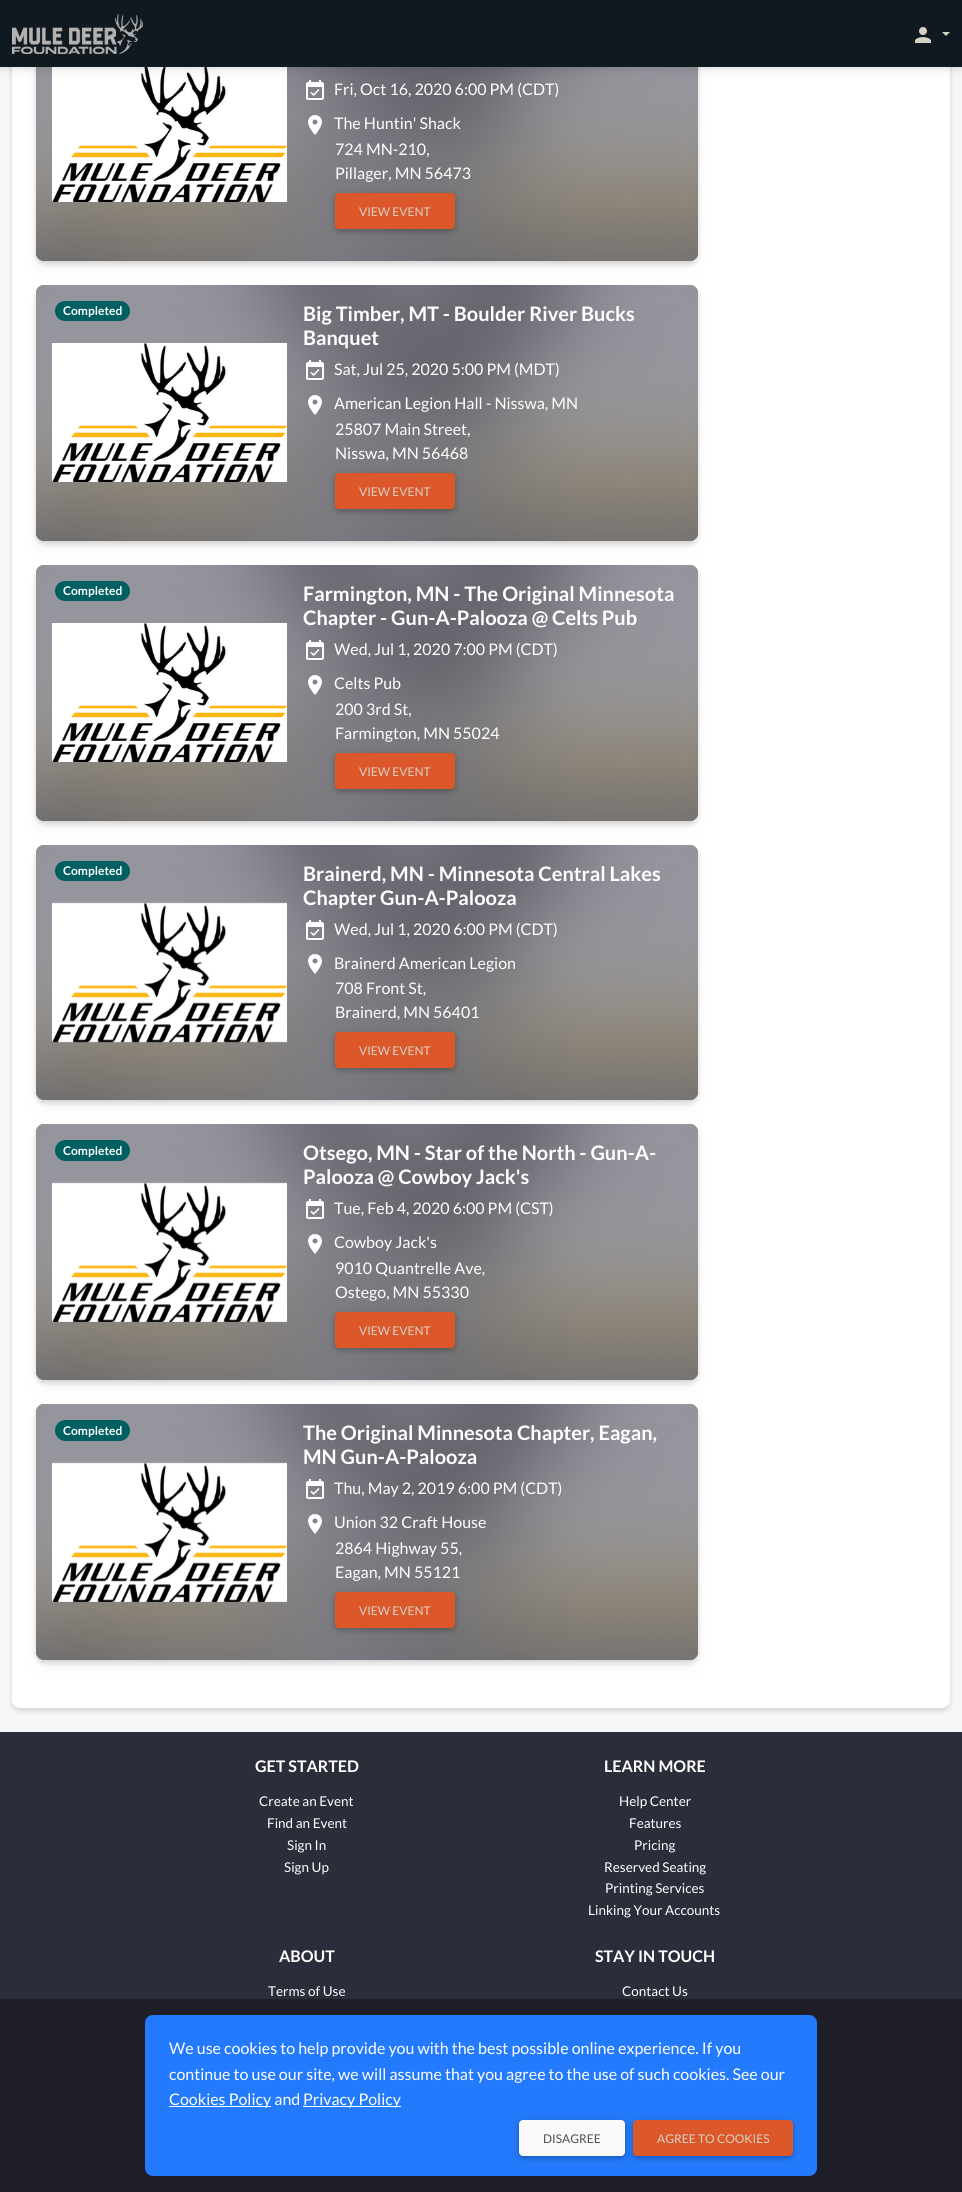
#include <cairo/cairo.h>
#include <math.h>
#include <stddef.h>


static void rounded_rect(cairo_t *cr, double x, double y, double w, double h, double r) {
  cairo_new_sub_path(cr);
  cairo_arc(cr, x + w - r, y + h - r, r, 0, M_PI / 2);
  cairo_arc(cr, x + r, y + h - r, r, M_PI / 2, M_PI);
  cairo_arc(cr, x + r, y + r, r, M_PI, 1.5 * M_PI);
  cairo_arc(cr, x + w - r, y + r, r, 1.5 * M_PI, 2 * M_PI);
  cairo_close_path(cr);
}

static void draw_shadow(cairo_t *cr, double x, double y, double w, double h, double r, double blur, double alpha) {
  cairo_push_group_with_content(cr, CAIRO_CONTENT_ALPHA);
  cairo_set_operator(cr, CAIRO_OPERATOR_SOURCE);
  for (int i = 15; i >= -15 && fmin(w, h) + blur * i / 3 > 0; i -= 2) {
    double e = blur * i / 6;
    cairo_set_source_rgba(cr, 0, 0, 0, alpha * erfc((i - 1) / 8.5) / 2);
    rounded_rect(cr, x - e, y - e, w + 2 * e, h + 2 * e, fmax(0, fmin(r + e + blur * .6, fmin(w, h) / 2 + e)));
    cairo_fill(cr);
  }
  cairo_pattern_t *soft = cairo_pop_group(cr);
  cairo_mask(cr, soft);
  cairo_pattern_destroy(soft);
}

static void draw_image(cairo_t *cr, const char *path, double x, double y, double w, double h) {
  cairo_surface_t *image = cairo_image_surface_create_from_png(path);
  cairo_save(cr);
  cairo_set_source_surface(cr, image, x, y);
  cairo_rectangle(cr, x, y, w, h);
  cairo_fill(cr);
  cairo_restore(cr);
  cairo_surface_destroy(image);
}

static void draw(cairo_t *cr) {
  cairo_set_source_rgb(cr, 245 / 255.0, 247 / 255.0, 248 / 255.0);
  cairo_paint(cr);
  cairo_set_source_rgb(cr, 0, 0, 0);
  draw_shadow(cr, 12, -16, 938, 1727, 8, 2.5, 0.15);
  cairo_set_source_rgb(cr, 1, 1, 1);
  rounded_rect(cr, 12, -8, 938, 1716, 8);
  cairo_fill(cr);
  cairo_set_source_rgb(cr, 0, 0, 0);
  draw_shadow(cr, 38, 17, 658, 252, 6, 10, 0.04);
  draw_shadow(cr, 36, 8, 662, 256, 8, 2.5, 0.15);
  cairo_set_source_rgb(cr, 43 / 255.0, 45 / 255.0, 59 / 255.0);
  rounded_rect(cr, 36, 5, 662, 256, 8);
  cairo_fill(cr);
  draw_image(cr, "images/3.png", 36, 67, 662, 194);
  draw_image(cr, "images/4.png", 52, 67, 235, 135);
  cairo_set_source_rgb(cr, 0, 0, 0);
  draw_shadow(cr, 0, 2, 962, 67, 0, 2, 0.05);
  draw_image(cr, "images/5.png", 306, 80, 18, 20);
  draw_shadow(cr, 0, 4, 962, 67, 0, 6, 0.07);
  cairo_set_source_rgb(cr, 16 / 255.0, 24 / 255.0, 32 / 255.0);
  cairo_rectangle(cr, 0, 0, 962, 67);
  cairo_fill(cr);
  draw_image(cr, "images/1.png", 12, 14, 131, 40);
  draw_image(cr, "images/2.png", 915, 27, 16, 16);
  cairo_set_source_rgb(cr, 214 / 255.0, 210 / 255.0, 196 / 255.0);
  cairo_new_path(cr);
  cairo_move_to(cr, 942, 32);
  cairo_line_to(cr, 950, 32);
  cairo_line_to(cr, 946, 36);
  cairo_close_path(cr);
  cairo_fill(cr);
  draw_image(cr, "images/6.png", 308, 115, 14, 20);
  cairo_set_source_rgb(cr, 0, 0, 0);
  draw_shadow(cr, 335, 195, 120, 36, 4, 5, 0.1);
  draw_shadow(cr, 335, 195, 120, 36, 4, 2.5, 0.2);
  cairo_set_source_rgb(cr, 220 / 255.0, 88 / 255.0, 42 / 255.0);
  rounded_rect(cr, 335, 193, 120, 36, 4);
  cairo_fill(cr);
  cairo_set_source_rgb(cr, 0, 0, 0);
  draw_shadow(cr, 38, 297, 658, 252, 6, 10, 0.04);
  draw_shadow(cr, 36, 288, 662, 256, 8, 2.5, 0.15);
  cairo_set_source_rgb(cr, 43 / 255.0, 45 / 255.0, 59 / 255.0);
  rounded_rect(cr, 36, 285, 662, 256, 8);
  cairo_fill(cr);
  draw_image(cr, "images/7.png", 36, 285, 662, 256);
  cairo_set_source_rgb(cr, 0, 95 / 255.0, 97 / 255.0);
  rounded_rect(cr, 55, 301, 75, 20, 10);
  cairo_fill(cr);
  draw_image(cr, "images/8.png", 52, 343, 235, 139);
  draw_image(cr, "images/5.png", 306, 360, 18, 20);
  draw_image(cr, "images/6.png", 308, 395, 14, 20);
  cairo_set_source_rgb(cr, 0, 0, 0);
  draw_shadow(cr, 335, 475, 120, 36, 4, 5, 0.1);
  draw_shadow(cr, 335, 475, 120, 36, 4, 2.5, 0.2);
  cairo_set_source_rgb(cr, 220 / 255.0, 88 / 255.0, 42 / 255.0);
  rounded_rect(cr, 335, 473, 120, 36, 4);
  cairo_fill(cr);
  cairo_set_source_rgb(cr, 0, 0, 0);
  draw_shadow(cr, 38, 577, 658, 252, 6, 10, 0.04);
  draw_shadow(cr, 36, 568, 662, 256, 8, 2.5, 0.15);
  cairo_set_source_rgb(cr, 43 / 255.0, 45 / 255.0, 59 / 255.0);
  rounded_rect(cr, 36, 565, 662, 256, 8);
  cairo_fill(cr);
  draw_image(cr, "images/7.png", 36, 565, 662, 256);
  cairo_set_source_rgb(cr, 0, 95 / 255.0, 97 / 255.0);
  rounded_rect(cr, 55, 581, 75, 20, 10);
  cairo_fill(cr);
  draw_image(cr, "images/8.png", 52, 623, 235, 139);
  draw_image(cr, "images/5.png", 306, 640, 18, 20);
  draw_image(cr, "images/6.png", 308, 675, 14, 20);
  cairo_set_source_rgb(cr, 0, 0, 0);
  draw_shadow(cr, 335, 755, 120, 36, 4, 5, 0.1);
  draw_shadow(cr, 335, 755, 120, 36, 4, 2.5, 0.2);
  cairo_set_source_rgb(cr, 220 / 255.0, 88 / 255.0, 42 / 255.0);
  rounded_rect(cr, 335, 753, 120, 36, 4);
  cairo_fill(cr);
  cairo_set_source_rgb(cr, 0, 0, 0);
  draw_shadow(cr, 38, 857, 658, 251, 6, 10, 0.04);
  draw_shadow(cr, 36, 848, 662, 255, 8, 2.5, 0.15);
  cairo_set_source_rgb(cr, 43 / 255.0, 45 / 255.0, 59 / 255.0);
  rounded_rect(cr, 36, 845, 662, 255, 8);
  cairo_fill(cr);
  draw_image(cr, "images/9.png", 36, 845, 662, 255);
  cairo_set_source_rgb(cr, 0, 95 / 255.0, 97 / 255.0);
  rounded_rect(cr, 55, 861, 75, 20, 10);
  cairo_fill(cr);
  draw_image(cr, "images/10.png", 52, 902, 235, 141);
  draw_image(cr, "images/11.png", 306, 920, 18, 20);
  draw_image(cr, "images/12.png", 308, 954, 14, 20);
  cairo_set_source_rgb(cr, 0, 0, 0);
  draw_shadow(cr, 335, 1034, 120, 36, 4, 5, 0.1);
  draw_shadow(cr, 335, 1034, 120, 36, 4, 2.5, 0.2);
  cairo_set_source_rgb(cr, 220 / 255.0, 88 / 255.0, 42 / 255.0);
  rounded_rect(cr, 335, 1032, 120, 36, 4);
  cairo_fill(cr);
  cairo_set_source_rgb(cr, 0, 0, 0);
  draw_shadow(cr, 38, 1136, 658, 252, 6, 10, 0.04);
  draw_shadow(cr, 36, 1127, 662, 256, 8, 2.5, 0.15);
  cairo_set_source_rgb(cr, 43 / 255.0, 45 / 255.0, 59 / 255.0);
  rounded_rect(cr, 36, 1124, 662, 256, 8);
  cairo_fill(cr);
  draw_image(cr, "images/7.png", 36, 1124, 662, 256);
  cairo_set_source_rgb(cr, 0, 95 / 255.0, 97 / 255.0);
  rounded_rect(cr, 55, 1140, 75, 21, 10.5);
  cairo_fill(cr);
  draw_image(cr, "images/13.png", 52, 1182, 235, 140);
  draw_image(cr, "images/5.png", 306, 1199, 18, 20);
  draw_image(cr, "images/6.png", 308, 1234, 14, 20);
  cairo_set_source_rgb(cr, 0, 0, 0);
  draw_shadow(cr, 335, 1314, 120, 36, 4, 5, 0.1);
  draw_shadow(cr, 335, 1314, 120, 36, 4, 2.5, 0.2);
  cairo_set_source_rgb(cr, 220 / 255.0, 88 / 255.0, 42 / 255.0);
  rounded_rect(cr, 335, 1312, 120, 36, 4);
  cairo_fill(cr);
  cairo_set_source_rgb(cr, 0, 0, 0);
  draw_shadow(cr, 38, 1416, 658, 252, 6, 10, 0.04);
  draw_shadow(cr, 36, 1407, 662, 256, 8, 2.5, 0.15);
  cairo_set_source_rgb(cr, 43 / 255.0, 45 / 255.0, 59 / 255.0);
  rounded_rect(cr, 36, 1404, 662, 256, 8);
  cairo_fill(cr);
  draw_image(cr, "images/7.png", 36, 1404, 662, 256);
  cairo_set_source_rgb(cr, 0, 95 / 255.0, 97 / 255.0);
  rounded_rect(cr, 55, 1420, 75, 21, 10.5);
  cairo_fill(cr);
  draw_image(cr, "images/14.png", 52, 1462, 235, 140);
  draw_image(cr, "images/5.png", 306, 1479, 18, 20);
  draw_image(cr, "images/6.png", 308, 1514, 14, 20);
  cairo_set_source_rgb(cr, 0, 0, 0);
  draw_shadow(cr, 335, 1594, 120, 36, 4, 5, 0.1);
  draw_shadow(cr, 335, 1594, 120, 36, 4, 2.5, 0.2);
  cairo_set_source_rgb(cr, 220 / 255.0, 88 / 255.0, 42 / 255.0);
  rounded_rect(cr, 335, 1592, 120, 36, 4);
  cairo_fill(cr);
  cairo_set_source_rgb(cr, 43 / 255.0, 45 / 255.0, 59 / 255.0);
  cairo_rectangle(cr, 0, 1732, 962, 267);
  cairo_fill(cr);
  cairo_set_source_rgb(cr, 29 / 255.0, 30 / 255.0, 40 / 255.0);
  cairo_rectangle(cr, 0, 1999, 962, 193);
  cairo_fill(cr);
  cairo_set_source_rgb(cr, 35 / 255.0, 122 / 255.0, 252 / 255.0);
  rounded_rect(cr, 145, 2015, 672, 161, 8);
  cairo_fill(cr);
  cairo_set_source_rgb(cr, 1, 1, 1);
  cairo_rectangle(cr, 169, 2106, 102, 1);
  cairo_fill(cr);
  cairo_rectangle(cr, 303, 2106, 98, 1);
  cairo_fill(cr);
  cairo_set_source_rgb(cr, 0, 0, 0);
  draw_shadow(cr, 633, 2122, 160, 36, 4, 5, 0.1);
  draw_shadow(cr, 633, 2122, 160, 36, 4, 2.5, 0.2);
  cairo_set_source_rgb(cr, 220 / 255.0, 88 / 255.0, 42 / 255.0);
  rounded_rect(cr, 633, 2120, 160, 36, 4);
  cairo_fill(cr);
  cairo_set_source_rgb(cr, 0, 0, 0);
  draw_shadow(cr, 519, 2122, 106, 36, 4, 5, 0.1);
  draw_shadow(cr, 519, 2122, 106, 36, 4, 2.5, 0.2);
  cairo_set_source_rgb(cr, 249 / 255.0, 249 / 255.0, 249 / 255.0);
  rounded_rect(cr, 519, 2120, 106, 36, 4);
  cairo_fill(cr);
  cairo_select_font_face(cr, "Lato", CAIRO_FONT_SLANT_NORMAL, CAIRO_FONT_WEIGHT_NORMAL);
  cairo_set_font_size(cr, 16);
  cairo_set_source_rgb(cr, 1, 1, 1);
  cairo_move_to(cr, 334, 95);
  cairo_show_text(cr, "Fri, Oct 16, 2020 6:00 PM (CDT)");
  cairo_move_to(cr, 334, 129);
  cairo_show_text(cr, "The Huntin' Shack");
  cairo_move_to(cr, 335, 155);
  cairo_show_text(cr, "724 MN-210,");
  cairo_move_to(cr, 335, 179);
  cairo_show_text(cr, "Pillager, MN 56473");
  cairo_set_font_size(cr, 12);
  cairo_set_source_rgb(cr, 214 / 255.0, 210 / 255.0, 196 / 255.0);
  cairo_move_to(cr, 359, 216);
  cairo_show_text(cr, "VIEW EVENT");
  cairo_select_font_face(cr, "Lato", CAIRO_FONT_SLANT_NORMAL, CAIRO_FONT_WEIGHT_BOLD);
  cairo_set_source_rgb(cr, 1, 1, 1);
  cairo_move_to(cr, 63, 315);
  cairo_show_text(cr, "Completed");
  cairo_set_font_size(cr, 20);
  cairo_move_to(cr, 303, 321);
  cairo_show_text(cr, "Big Timber, MT - Boulder River Bucks");
  cairo_move_to(cr, 303, 345);
  cairo_show_text(cr, "Banquet");
  cairo_select_font_face(cr, "Lato", CAIRO_FONT_SLANT_NORMAL, CAIRO_FONT_WEIGHT_NORMAL);
  cairo_set_font_size(cr, 16);
  cairo_move_to(cr, 334, 375);
  cairo_show_text(cr, "Sat, Jul 25, 2020 5:00 PM (MDT)");
  cairo_move_to(cr, 334, 409);
  cairo_show_text(cr, "American Legion Hall - Nisswa, MN");
  cairo_move_to(cr, 335, 435);
  cairo_show_text(cr, "25807 Main Street,");
  cairo_move_to(cr, 335, 459);
  cairo_show_text(cr, "Nisswa, MN 56468");
  cairo_set_font_size(cr, 12);
  cairo_set_source_rgb(cr, 214 / 255.0, 210 / 255.0, 196 / 255.0);
  cairo_move_to(cr, 359, 496);
  cairo_show_text(cr, "VIEW EVENT");
  cairo_select_font_face(cr, "Lato", CAIRO_FONT_SLANT_NORMAL, CAIRO_FONT_WEIGHT_BOLD);
  cairo_set_source_rgb(cr, 1, 1, 1);
  cairo_move_to(cr, 63, 595);
  cairo_show_text(cr, "Completed");
  cairo_set_font_size(cr, 20);
  cairo_move_to(cr, 303, 601);
  cairo_show_text(cr, "Farmington, MN - The Original Minnesota");
  cairo_move_to(cr, 303, 625);
  cairo_show_text(cr, "Chapter - Gun-A-Palooza @ Celts Pub");
  cairo_select_font_face(cr, "Lato", CAIRO_FONT_SLANT_NORMAL, CAIRO_FONT_WEIGHT_NORMAL);
  cairo_set_font_size(cr, 16);
  cairo_move_to(cr, 334, 655);
  cairo_show_text(cr, "Wed, Jul 1, 2020 7:00 PM (CDT)");
  cairo_move_to(cr, 334, 689);
  cairo_show_text(cr, "Celts Pub");
  cairo_move_to(cr, 335, 715);
  cairo_show_text(cr, "200 3rd St,");
  cairo_move_to(cr, 335, 739);
  cairo_show_text(cr, "Farmington, MN 55024");
  cairo_set_font_size(cr, 12);
  cairo_set_source_rgb(cr, 214 / 255.0, 210 / 255.0, 196 / 255.0);
  cairo_move_to(cr, 359, 776);
  cairo_show_text(cr, "VIEW EVENT");
  cairo_select_font_face(cr, "Lato", CAIRO_FONT_SLANT_NORMAL, CAIRO_FONT_WEIGHT_BOLD);
  cairo_set_source_rgb(cr, 1, 1, 1);
  cairo_move_to(cr, 63, 875);
  cairo_show_text(cr, "Completed");
  cairo_set_font_size(cr, 20);
  cairo_move_to(cr, 303, 881);
  cairo_show_text(cr, "Brainerd, MN - Minnesota Central Lakes");
  cairo_move_to(cr, 303, 905);
  cairo_show_text(cr, "Chapter Gun-A-Palooza");
  cairo_select_font_face(cr, "Lato", CAIRO_FONT_SLANT_NORMAL, CAIRO_FONT_WEIGHT_NORMAL);
  cairo_set_font_size(cr, 16);
  cairo_move_to(cr, 334, 935);
  cairo_show_text(cr, "Wed, Jul 1, 2020 6:00 PM (CDT)");
  cairo_move_to(cr, 334, 969);
  cairo_show_text(cr, "Brainerd American Legion");
  cairo_move_to(cr, 335, 994);
  cairo_show_text(cr, "708 Front St,");
  cairo_move_to(cr, 335, 1018);
  cairo_show_text(cr, "Brainerd, MN 56401");
  cairo_set_font_size(cr, 12);
  cairo_set_source_rgb(cr, 214 / 255.0, 210 / 255.0, 196 / 255.0);
  cairo_move_to(cr, 359, 1055);
  cairo_show_text(cr, "VIEW EVENT");
  cairo_select_font_face(cr, "Lato", CAIRO_FONT_SLANT_NORMAL, CAIRO_FONT_WEIGHT_BOLD);
  cairo_set_source_rgb(cr, 1, 1, 1);
  cairo_move_to(cr, 63, 1155);
  cairo_show_text(cr, "Completed");
  cairo_set_font_size(cr, 20);
  cairo_move_to(cr, 303, 1160);
  cairo_show_text(cr, "Otsego, MN - Star of the North - Gun-A-");
  cairo_move_to(cr, 303, 1184);
  cairo_show_text(cr, "Palooza @ Cowboy Jack's");
  cairo_select_font_face(cr, "Lato", CAIRO_FONT_SLANT_NORMAL, CAIRO_FONT_WEIGHT_NORMAL);
  cairo_set_font_size(cr, 16);
  cairo_move_to(cr, 334, 1214);
  cairo_show_text(cr, "Tue, Feb 4, 2020 6:00 PM (CST)");
  cairo_move_to(cr, 334, 1248);
  cairo_show_text(cr, "Cowboy Jack's");
  cairo_move_to(cr, 335, 1274);
  cairo_show_text(cr, "9010 Quantrelle Ave,");
  cairo_move_to(cr, 335, 1298);
  cairo_show_text(cr, "Ostego, MN 55330");
  cairo_set_font_size(cr, 12);
  cairo_set_source_rgb(cr, 214 / 255.0, 210 / 255.0, 196 / 255.0);
  cairo_move_to(cr, 359, 1335);
  cairo_show_text(cr, "VIEW EVENT");
  cairo_select_font_face(cr, "Lato", CAIRO_FONT_SLANT_NORMAL, CAIRO_FONT_WEIGHT_BOLD);
  cairo_set_source_rgb(cr, 1, 1, 1);
  cairo_move_to(cr, 63, 1435);
  cairo_show_text(cr, "Completed");
  cairo_set_font_size(cr, 20);
  cairo_move_to(cr, 303, 1440);
  cairo_show_text(cr, "The Original Minnesota Chapter, Eagan,");
  cairo_move_to(cr, 303, 1464);
  cairo_show_text(cr, "MN Gun-A-Palooza");
  cairo_select_font_face(cr, "Lato", CAIRO_FONT_SLANT_NORMAL, CAIRO_FONT_WEIGHT_NORMAL);
  cairo_set_font_size(cr, 16);
  cairo_move_to(cr, 334, 1494);
  cairo_show_text(cr, "Thu, May 2, 2019 6:00 PM (CDT)");
  cairo_move_to(cr, 334, 1528);
  cairo_show_text(cr, "Union 32 Craft House");
  cairo_move_to(cr, 335, 1554);
  cairo_show_text(cr, "2864 Highway 55,");
  cairo_move_to(cr, 335, 1578);
  cairo_show_text(cr, "Eagan, MN 55121");
  cairo_set_font_size(cr, 12);
  cairo_set_source_rgb(cr, 214 / 255.0, 210 / 255.0, 196 / 255.0);
  cairo_move_to(cr, 359, 1615);
  cairo_show_text(cr, "VIEW EVENT");
  cairo_select_font_face(cr, "Lato", CAIRO_FONT_SLANT_NORMAL, CAIRO_FONT_WEIGHT_BOLD);
  cairo_set_font_size(cr, 16);
  cairo_set_source_rgb(cr, 1, 1, 1);
  cairo_move_to(cr, 255, 1772);
  cairo_show_text(cr, "GET STARTED");
  cairo_select_font_face(cr, "Lato", CAIRO_FONT_SLANT_NORMAL, CAIRO_FONT_WEIGHT_NORMAL);
  cairo_set_font_size(cr, 13.5);
  cairo_move_to(cr, 259, 1806);
  cairo_show_text(cr, "Create an Event");
  cairo_move_to(cr, 267, 1828);
  cairo_show_text(cr, "Find an Event");
  cairo_move_to(cr, 287, 1850);
  cairo_show_text(cr, "Sign In");
  cairo_move_to(cr, 284, 1872);
  cairo_show_text(cr, "Sign Up");
  cairo_select_font_face(cr, "Lato", CAIRO_FONT_SLANT_NORMAL, CAIRO_FONT_WEIGHT_BOLD);
  cairo_set_font_size(cr, 16);
  cairo_move_to(cr, 604, 1772);
  cairo_show_text(cr, "LEARN MORE");
  cairo_select_font_face(cr, "Lato", CAIRO_FONT_SLANT_NORMAL, CAIRO_FONT_WEIGHT_NORMAL);
  cairo_set_font_size(cr, 13.5);
  cairo_move_to(cr, 619, 1806);
  cairo_show_text(cr, "Help Center");
  cairo_move_to(cr, 629, 1828);
  cairo_show_text(cr, "Features");
  cairo_move_to(cr, 634, 1850);
  cairo_show_text(cr, "Pricing");
  cairo_move_to(cr, 604, 1872);
  cairo_show_text(cr, "Reserved Seating");
  cairo_move_to(cr, 605, 1893);
  cairo_show_text(cr, "Printing Services");
  cairo_move_to(cr, 588, 1915);
  cairo_show_text(cr, "Linking Your Accounts");
  cairo_select_font_face(cr, "Lato", CAIRO_FONT_SLANT_NORMAL, CAIRO_FONT_WEIGHT_BOLD);
  cairo_set_font_size(cr, 16);
  cairo_move_to(cr, 279, 1962);
  cairo_show_text(cr, "ABOUT");
  cairo_select_font_face(cr, "Lato", CAIRO_FONT_SLANT_NORMAL, CAIRO_FONT_WEIGHT_NORMAL);
  cairo_set_font_size(cr, 13.5);
  cairo_move_to(cr, 268, 1996);
  cairo_show_text(cr, "Terms of Use");
  cairo_select_font_face(cr, "Lato", CAIRO_FONT_SLANT_NORMAL, CAIRO_FONT_WEIGHT_BOLD);
  cairo_set_font_size(cr, 16);
  cairo_move_to(cr, 595, 1962);
  cairo_show_text(cr, "STAY IN TOUCH");
  cairo_select_font_face(cr, "Lato", CAIRO_FONT_SLANT_NORMAL, CAIRO_FONT_WEIGHT_NORMAL);
  cairo_set_font_size(cr, 13.5);
  cairo_move_to(cr, 622, 1996);
  cairo_show_text(cr, "Contact Us");
  cairo_set_font_size(cr, 16);
  cairo_move_to(cr, 169, 2054);
  cairo_show_text(cr, "We use cookies to help provide you with the best possible online experience. If you");
  cairo_move_to(cr, 169, 2080);
  cairo_show_text(cr, "continue to use our site, we will assume that you agree to the use of such cookies. See our");
  cairo_move_to(cr, 169, 2105);
  cairo_show_text(cr, "Cookies Policy and");
  cairo_move_to(cr, 303, 2105);
  cairo_show_text(cr, "Privacy Policy");
  cairo_set_font_size(cr, 12);
  cairo_set_source_rgb(cr, 79 / 255.0, 79 / 255.0, 79 / 255.0);
  cairo_move_to(cr, 543, 2143);
  cairo_show_text(cr, "DISAGREE");
  cairo_set_source_rgb(cr, 214 / 255.0, 210 / 255.0, 196 / 255.0);
  cairo_move_to(cr, 657, 2143);
  cairo_show_text(cr, "AGREE TO COOKIES");
}

int main(void) {
  cairo_surface_t *surface = cairo_image_surface_create(CAIRO_FORMAT_RGB24, 962, 2192);
  cairo_t *cr = cairo_create(surface);
  cairo_font_options_t *options = cairo_font_options_create();
  cairo_font_options_set_hint_metrics(options, CAIRO_HINT_METRICS_OFF);
  cairo_font_options_set_hint_style(options, CAIRO_HINT_STYLE_NONE);
  cairo_set_font_options(cr, options);
  cairo_set_miter_limit(cr, 4);
  draw(cr);
  cairo_surface_write_to_png(surface, "out.png");
  cairo_font_options_destroy(options);
  cairo_destroy(cr);
  cairo_surface_destroy(surface);
  return 0;
}
